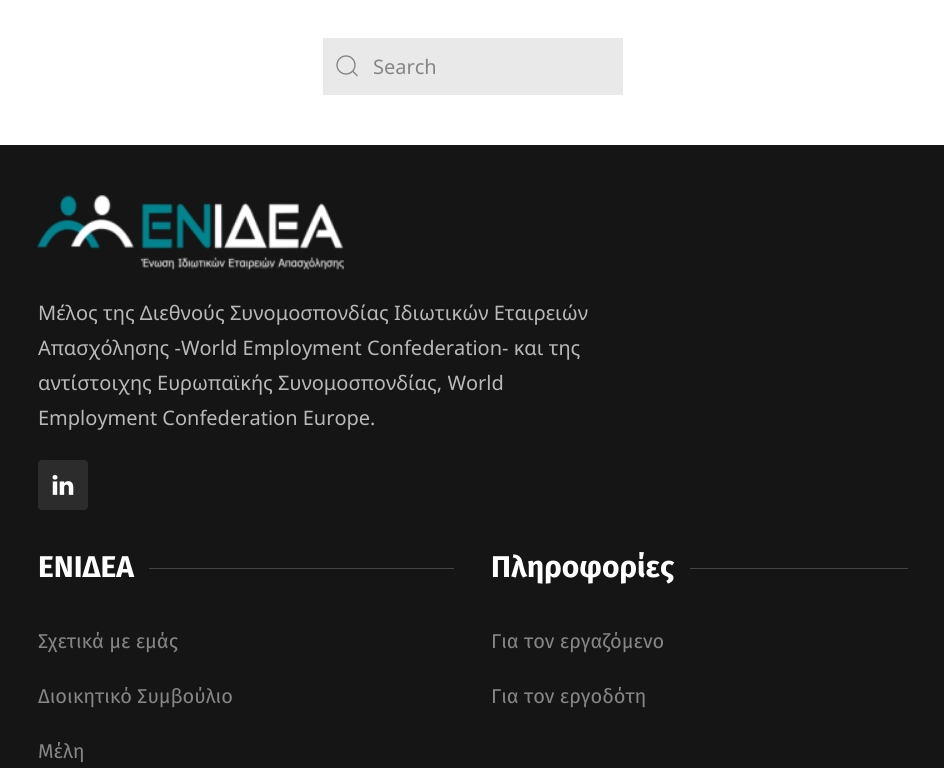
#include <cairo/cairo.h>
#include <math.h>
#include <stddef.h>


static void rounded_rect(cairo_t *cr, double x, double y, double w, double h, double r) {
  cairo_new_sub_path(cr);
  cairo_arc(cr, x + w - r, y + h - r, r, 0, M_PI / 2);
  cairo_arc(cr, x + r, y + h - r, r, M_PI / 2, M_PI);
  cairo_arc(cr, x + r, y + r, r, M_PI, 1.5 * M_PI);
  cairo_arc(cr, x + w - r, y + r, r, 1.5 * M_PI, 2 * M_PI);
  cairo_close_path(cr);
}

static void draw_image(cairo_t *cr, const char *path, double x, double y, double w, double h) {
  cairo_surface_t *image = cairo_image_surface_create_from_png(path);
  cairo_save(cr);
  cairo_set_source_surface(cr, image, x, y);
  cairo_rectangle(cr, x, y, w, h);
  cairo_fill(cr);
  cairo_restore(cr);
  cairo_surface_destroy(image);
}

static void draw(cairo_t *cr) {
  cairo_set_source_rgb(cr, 1, 1, 1);
  cairo_paint(cr);
  cairo_set_source_rgb(cr, 233 / 255.0, 233 / 255.0, 233 / 255.0);
  cairo_rectangle(cr, 323, 38, 300, 57);
  cairo_fill(cr);
  cairo_arc(cr, 346, 65, 9, 0, 2 * M_PI);
  cairo_set_source_rgb(cr, 134 / 255.0, 134 / 255.0, 134 / 255.0);
  cairo_set_line_width(cr, 1.4);
  cairo_stroke(cr);
  cairo_new_path(cr);
  cairo_move_to(cr, 352.5, 71);
  cairo_line_to(cr, 357.5, 76);
  cairo_close_path(cr);
  cairo_stroke(cr);
  cairo_set_source_rgb(cr, 21 / 255.0, 21 / 255.0, 21 / 255.0);
  cairo_rectangle(cr, 0, 145, 944, 623);
  cairo_fill(cr);
  draw_image(cr, "images/1.png", 37, 195, 307, 75);
  cairo_set_source_rgb(cr, 44 / 255.0, 44 / 255.0, 44 / 255.0);
  rounded_rect(cr, 38, 460, 50, 50, 4);
  cairo_fill(cr);
  draw_image(cr, "images/2.png", 52, 475, 22, 20);
  cairo_set_source_rgb(cr, 68 / 255.0, 68 / 255.0, 68 / 255.0);
  cairo_rectangle(cr, 149, 568, 305, 1);
  cairo_fill(cr);
  cairo_rectangle(cr, 690, 568, 218, 1);
  cairo_fill(cr);
  cairo_select_font_face(cr, "Noto Sans", CAIRO_FONT_SLANT_NORMAL, CAIRO_FONT_WEIGHT_NORMAL);
  cairo_set_font_size(cr, 20);
  cairo_set_source_rgb(cr, 134 / 255.0, 134 / 255.0, 134 / 255.0);
  cairo_move_to(cr, 373, 74);
  cairo_show_text(cr, "Search");
  cairo_set_source_rgb(cr, 185 / 255.0, 185 / 255.0, 185 / 255.0);
  cairo_move_to(cr, 38, 320);
  cairo_show_text(cr, "Μέλος της Διεθνούς Συνομοσπονδίας Ιδιωτικών Εταιρειών");
  cairo_move_to(cr, 38, 355);
  cairo_show_text(cr, "Απασχόλησης -World Employment Confederation- και της");
  cairo_move_to(cr, 38, 390);
  cairo_show_text(cr, "αντίστοιχης Ευρωπαϊκής Συνομοσπονδίας, World");
  cairo_move_to(cr, 38, 425);
  cairo_show_text(cr, "Employment Confederation Europe.");
  cairo_select_font_face(cr, "Fira Sans", CAIRO_FONT_SLANT_NORMAL, CAIRO_FONT_WEIGHT_BOLD);
  cairo_set_font_size(cr, 30);
  cairo_set_source_rgb(cr, 1, 1, 1);
  cairo_move_to(cr, 38, 577);
  cairo_show_text(cr, "ΕΝΙΔΕΑ");
  cairo_select_font_face(cr, "Fira Sans", CAIRO_FONT_SLANT_NORMAL, CAIRO_FONT_WEIGHT_NORMAL);
  cairo_set_font_size(cr, 20);
  cairo_set_source_rgb(cr, 134 / 255.0, 134 / 255.0, 134 / 255.0);
  cairo_move_to(cr, 38, 648);
  cairo_show_text(cr, "Σχετικά με εμάς");
  cairo_move_to(cr, 38, 703);
  cairo_show_text(cr, "Διοικητικό Συμβούλιο");
  cairo_move_to(cr, 38, 758);
  cairo_show_text(cr, "Μέλη");
  cairo_select_font_face(cr, "Fira Sans", CAIRO_FONT_SLANT_NORMAL, CAIRO_FONT_WEIGHT_BOLD);
  cairo_set_font_size(cr, 30);
  cairo_set_source_rgb(cr, 1, 1, 1);
  cairo_move_to(cr, 491, 577);
  cairo_show_text(cr, "Πληροφορίες");
  cairo_select_font_face(cr, "Fira Sans", CAIRO_FONT_SLANT_NORMAL, CAIRO_FONT_WEIGHT_NORMAL);
  cairo_set_font_size(cr, 20);
  cairo_set_source_rgb(cr, 134 / 255.0, 134 / 255.0, 134 / 255.0);
  cairo_move_to(cr, 491, 648);
  cairo_show_text(cr, "Για τον εργαζόμενο");
  cairo_move_to(cr, 491, 703);
  cairo_show_text(cr, "Για τον εργοδότη");
}

int main(void) {
  cairo_surface_t *surface = cairo_image_surface_create(CAIRO_FORMAT_RGB24, 944, 768);
  cairo_t *cr = cairo_create(surface);
  cairo_font_options_t *options = cairo_font_options_create();
  cairo_font_options_set_hint_metrics(options, CAIRO_HINT_METRICS_OFF);
  cairo_font_options_set_hint_style(options, CAIRO_HINT_STYLE_NONE);
  cairo_set_font_options(cr, options);
  cairo_set_miter_limit(cr, 4);
  draw(cr);
  cairo_surface_write_to_png(surface, "out.png");
  cairo_font_options_destroy(options);
  cairo_destroy(cr);
  cairo_surface_destroy(surface);
  return 0;
}
